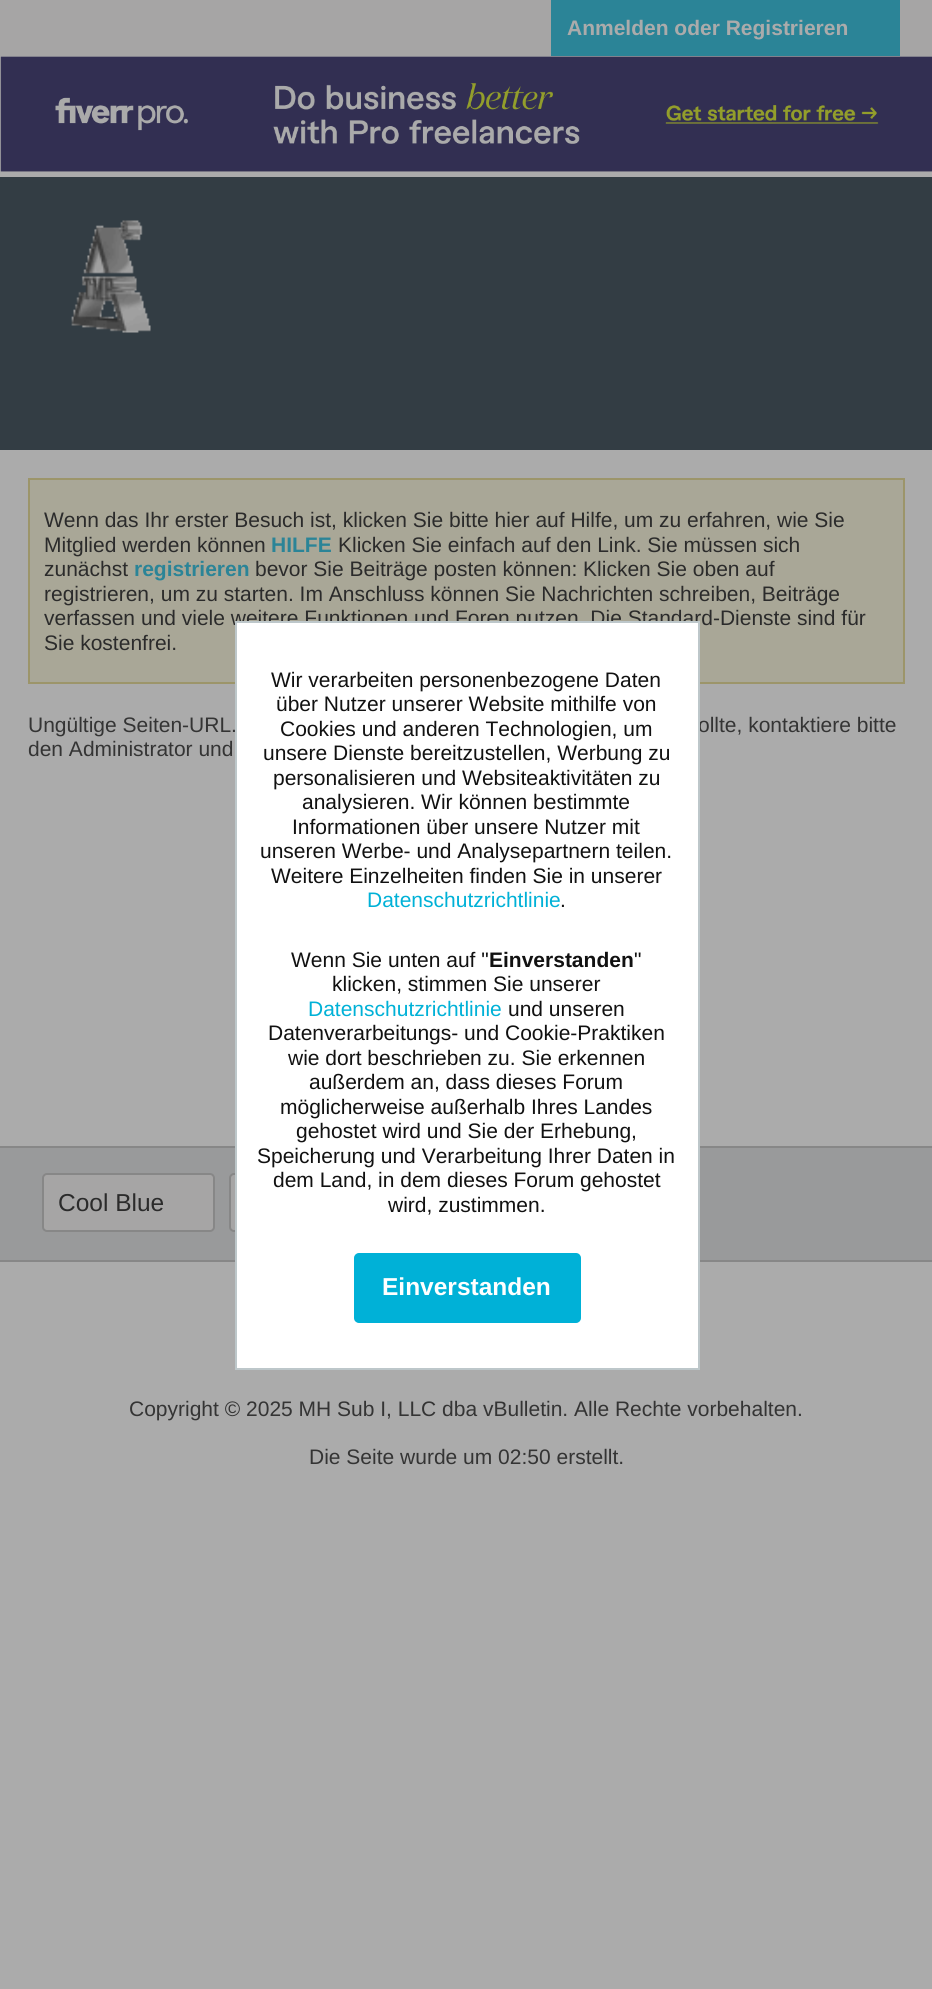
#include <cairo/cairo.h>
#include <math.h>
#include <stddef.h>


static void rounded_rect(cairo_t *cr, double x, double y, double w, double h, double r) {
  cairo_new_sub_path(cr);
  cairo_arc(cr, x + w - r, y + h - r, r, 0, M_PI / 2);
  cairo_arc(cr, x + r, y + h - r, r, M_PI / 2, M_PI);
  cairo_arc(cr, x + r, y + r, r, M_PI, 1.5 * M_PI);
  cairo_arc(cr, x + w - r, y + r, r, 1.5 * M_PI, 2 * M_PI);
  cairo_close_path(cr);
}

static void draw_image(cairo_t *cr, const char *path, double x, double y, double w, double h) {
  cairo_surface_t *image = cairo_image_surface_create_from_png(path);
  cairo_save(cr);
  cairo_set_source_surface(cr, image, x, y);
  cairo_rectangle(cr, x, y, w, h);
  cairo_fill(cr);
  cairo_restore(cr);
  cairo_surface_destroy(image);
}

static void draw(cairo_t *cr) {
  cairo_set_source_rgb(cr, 171 / 255.0, 171 / 255.0, 171 / 255.0);
  cairo_paint(cr);
  cairo_set_source_rgb(cr, 166 / 255.0, 165 / 255.0, 165 / 255.0);
  cairo_rectangle(cr, 0, 0, 932, 56);
  cairo_fill(cr);
  cairo_set_source_rgb(cr, 43 / 255.0, 132 / 255.0, 151 / 255.0);
  cairo_rectangle(cr, 551, 0, 349, 56);
  cairo_fill(cr);
  draw_image(cr, "images/1.png", 0, 56, 932, 116);
  cairo_set_source_rgb(cr, 51 / 255.0, 61 / 255.0, 68 / 255.0);
  cairo_rectangle(cr, 0, 177, 932, 273);
  cairo_fill(cr);
  draw_image(cr, "images/2.png", 71, 220, 80, 113);
  cairo_set_source_rgb(cr, 169 / 255.0, 167 / 255.0, 151 / 255.0);
  cairo_rectangle(cr, 29, 479, 875, 204);
  cairo_fill_preserve(cr);
  cairo_set_source_rgb(cr, 156 / 255.0, 149 / 255.0, 106 / 255.0);
  cairo_stroke(cr);
  cairo_set_source_rgb(cr, 153 / 255.0, 154 / 255.0, 155 / 255.0);
  cairo_rectangle(cr, 0, 1148, 932, 112);
  cairo_fill(cr);
  cairo_set_source_rgb(cr, 135 / 255.0, 135 / 255.0, 135 / 255.0);
  cairo_rectangle(cr, 0, 1146, 932, 2);
  cairo_fill(cr);
  cairo_rectangle(cr, 0, 1260, 932, 2);
  cairo_fill(cr);
  cairo_set_source_rgb(cr, 166 / 255.0, 165 / 255.0, 165 / 255.0);
  rounded_rect(cr, 43, 1174, 171, 57, 4);
  cairo_fill_preserve(cr);
  cairo_set_source_rgb(cr, 135 / 255.0, 135 / 255.0, 135 / 255.0);
  cairo_stroke(cr);
  cairo_set_source_rgb(cr, 166 / 255.0, 165 / 255.0, 165 / 255.0);
  rounded_rect(cr, 230, 1174, 208, 57, 4);
  cairo_fill_preserve(cr);
  cairo_set_source_rgb(cr, 135 / 255.0, 135 / 255.0, 135 / 255.0);
  cairo_stroke(cr);
  cairo_select_font_face(cr, "Liberation Sans", CAIRO_FONT_SLANT_NORMAL, CAIRO_FONT_WEIGHT_BOLD);
  cairo_set_font_size(cr, 21);
  cairo_set_source_rgb(cr, 171 / 255.0, 171 / 255.0, 171 / 255.0);
  cairo_move_to(cr, 567, 35);
  cairo_show_text(cr, "Anmelden oder Registrieren");
  cairo_select_font_face(cr, "Liberation Sans", CAIRO_FONT_SLANT_NORMAL, CAIRO_FONT_WEIGHT_NORMAL);
  cairo_set_source_rgb(cr, 43 / 255.0, 43 / 255.0, 43 / 255.0);
  cairo_move_to(cr, 44, 527);
  cairo_show_text(cr, "Wenn das Ihr erster Besuch ist, klicken Sie bitte hier auf Hilfe, um zu erfahren, wie Sie");
  cairo_move_to(cr, 44, 552);
  cairo_show_text(cr, "Mitglied werden können");
  cairo_select_font_face(cr, "Liberation Sans", CAIRO_FONT_SLANT_NORMAL, CAIRO_FONT_WEIGHT_BOLD);
  cairo_set_source_rgb(cr, 43 / 255.0, 132 / 255.0, 151 / 255.0);
  cairo_move_to(cr, 271, 552);
  cairo_show_text(cr, "HILFE");
  cairo_select_font_face(cr, "Liberation Sans", CAIRO_FONT_SLANT_NORMAL, CAIRO_FONT_WEIGHT_NORMAL);
  cairo_set_source_rgb(cr, 43 / 255.0, 43 / 255.0, 43 / 255.0);
  cairo_move_to(cr, 338, 552);
  cairo_show_text(cr, "Klicken Sie einfach auf den Link. Sie müssen sich");
  cairo_move_to(cr, 44, 576);
  cairo_show_text(cr, "zunächst");
  cairo_select_font_face(cr, "Liberation Sans", CAIRO_FONT_SLANT_NORMAL, CAIRO_FONT_WEIGHT_BOLD);
  cairo_set_source_rgb(cr, 43 / 255.0, 132 / 255.0, 151 / 255.0);
  cairo_move_to(cr, 134, 576);
  cairo_show_text(cr, "registrieren");
  cairo_select_font_face(cr, "Liberation Sans", CAIRO_FONT_SLANT_NORMAL, CAIRO_FONT_WEIGHT_NORMAL);
  cairo_set_source_rgb(cr, 43 / 255.0, 43 / 255.0, 43 / 255.0);
  cairo_move_to(cr, 255, 576);
  cairo_show_text(cr, "bevor Sie Beiträge posten können: Klicken Sie oben auf");
  cairo_move_to(cr, 44, 601);
  cairo_show_text(cr, "registrieren, um zu starten. Im Anschluss können Sie Nachrichten schreiben, Beiträge");
  cairo_move_to(cr, 44, 625);
  cairo_show_text(cr, "verfassen und viele weitere Funktionen und Foren nutzen. Die Standard-Dienste sind für");
  cairo_move_to(cr, 44, 650);
  cairo_show_text(cr, "Sie kostenfrei.");
  cairo_set_source_rgb(cr, 52 / 255.0, 52 / 255.0, 52 / 255.0);
  cairo_move_to(cr, 28, 732);
  cairo_show_text(cr, "Ungültige Seiten-URL.");
  cairo_move_to(cr, 698, 732);
  cairo_show_text(cr, "ollte, kontaktiere bitte");
  cairo_move_to(cr, 28, 756);
  cairo_show_text(cr, "den Administrator und");
  cairo_set_font_size(cr, 24.5);
  cairo_set_source_rgb(cr, 43 / 255.0, 43 / 255.0, 43 / 255.0);
  cairo_move_to(cr, 58, 1211);
  cairo_show_text(cr, "Cool Blue");
  cairo_set_font_size(cr, 21);
  cairo_set_source_rgb(cr, 52 / 255.0, 52 / 255.0, 52 / 255.0);
  cairo_move_to(cr, 129, 1416);
  cairo_show_text(cr, "Copyright © 2025 MH Sub I, LLC dba vBulletin. Alle Rechte vorbehalten.");
  cairo_move_to(cr, 309, 1464);
  cairo_show_text(cr, "Die Seite wurde um 02:50 erstellt.");
  cairo_set_source_rgb(cr, 1, 1, 1);
  cairo_rectangle(cr, 236, 622, 463, 747);
  cairo_fill_preserve(cr);
  cairo_set_source_rgb(cr, 189 / 255.0, 199 / 255.0, 202 / 255.0);
  cairo_stroke(cr);
  cairo_set_source_rgb(cr, 17 / 255.0, 17 / 255.0, 17 / 255.0);
  cairo_move_to(cr, 271, 687);
  cairo_show_text(cr, "Wir verarbeiten personenbezogene Daten");
  cairo_move_to(cr, 276, 711);
  cairo_show_text(cr, "über Nutzer unserer Website mithilfe von");
  cairo_move_to(cr, 280, 736);
  cairo_show_text(cr, "Cookies und anderen Technologien, um");
  cairo_move_to(cr, 263, 760);
  cairo_show_text(cr, "unsere Dienste bereitzustellen, Werbung zu");
  cairo_move_to(cr, 273, 785);
  cairo_show_text(cr, "personalisieren und Websiteaktivitäten zu");
  cairo_move_to(cr, 302, 809);
  cairo_show_text(cr, "analysieren. Wir können bestimmte");
  cairo_move_to(cr, 292, 834);
  cairo_show_text(cr, "Informationen über unsere Nutzer mit");
  cairo_move_to(cr, 260, 858);
  cairo_show_text(cr, "unseren Werbe- und Analysepartnern teilen.");
  cairo_move_to(cr, 271, 883);
  cairo_show_text(cr, "Weitere Einzelheiten finden Sie in unserer");
  cairo_set_source_rgb(cr, 0, 177 / 255.0, 215 / 255.0);
  cairo_move_to(cr, 367, 907);
  cairo_show_text(cr, "Datenschutzrichtlinie");
  cairo_set_source_rgb(cr, 17 / 255.0, 17 / 255.0, 17 / 255.0);
  cairo_move_to(cr, 560, 907);
  cairo_show_text(cr, ".");
  cairo_move_to(cr, 291, 967);
  cairo_show_text(cr, "Wenn Sie unten auf \"");
  cairo_select_font_face(cr, "Liberation Sans", CAIRO_FONT_SLANT_NORMAL, CAIRO_FONT_WEIGHT_BOLD);
  cairo_move_to(cr, 489, 967);
  cairo_show_text(cr, "Einverstanden");
  cairo_select_font_face(cr, "Liberation Sans", CAIRO_FONT_SLANT_NORMAL, CAIRO_FONT_WEIGHT_NORMAL);
  cairo_move_to(cr, 634, 967);
  cairo_show_text(cr, "\"");
  cairo_move_to(cr, 332, 991);
  cairo_show_text(cr, "klicken, stimmen Sie unserer");
  cairo_set_source_rgb(cr, 0, 177 / 255.0, 215 / 255.0);
  cairo_move_to(cr, 308, 1016);
  cairo_show_text(cr, "Datenschutzrichtlinie");
  cairo_set_source_rgb(cr, 17 / 255.0, 17 / 255.0, 17 / 255.0);
  cairo_move_to(cr, 508, 1016);
  cairo_show_text(cr, "und unseren");
  cairo_move_to(cr, 268, 1040);
  cairo_show_text(cr, "Datenverarbeitungs- und Cookie-Praktiken");
  cairo_move_to(cr, 288, 1065);
  cairo_show_text(cr, "wie dort beschrieben zu. Sie erkennen");
  cairo_move_to(cr, 309, 1089);
  cairo_show_text(cr, "außerdem an, dass dieses Forum");
  cairo_move_to(cr, 280, 1114);
  cairo_show_text(cr, "möglicherweise außerhalb Ihres Landes");
  cairo_move_to(cr, 296, 1138);
  cairo_show_text(cr, "gehostet wird und Sie der Erhebung,");
  cairo_move_to(cr, 257, 1163);
  cairo_show_text(cr, "Speicherung und Verarbeitung Ihrer Daten in");
  cairo_move_to(cr, 273, 1187);
  cairo_show_text(cr, "dem Land, in dem dieses Forum gehostet");
  cairo_move_to(cr, 388, 1212);
  cairo_show_text(cr, "wird, zustimmen.");
  cairo_set_source_rgb(cr, 0, 177 / 255.0, 215 / 255.0);
  rounded_rect(cr, 355, 1254, 225, 68, 4);
  cairo_fill_preserve(cr);
  cairo_stroke(cr);
  cairo_select_font_face(cr, "Liberation Sans", CAIRO_FONT_SLANT_NORMAL, CAIRO_FONT_WEIGHT_BOLD);
  cairo_set_font_size(cr, 24.5);
  cairo_set_source_rgb(cr, 1, 1, 1);
  cairo_move_to(cr, 382, 1295);
  cairo_show_text(cr, "Einverstanden");
}

int main(void) {
  cairo_surface_t *surface = cairo_image_surface_create(CAIRO_FORMAT_RGB24, 932, 1989);
  cairo_t *cr = cairo_create(surface);
  cairo_font_options_t *options = cairo_font_options_create();
  cairo_font_options_set_hint_metrics(options, CAIRO_HINT_METRICS_OFF);
  cairo_font_options_set_hint_style(options, CAIRO_HINT_STYLE_NONE);
  cairo_set_font_options(cr, options);
  cairo_set_miter_limit(cr, 4);
  draw(cr);
  cairo_surface_write_to_png(surface, "out.png");
  cairo_font_options_destroy(options);
  cairo_destroy(cr);
  cairo_surface_destroy(surface);
  return 0;
}
